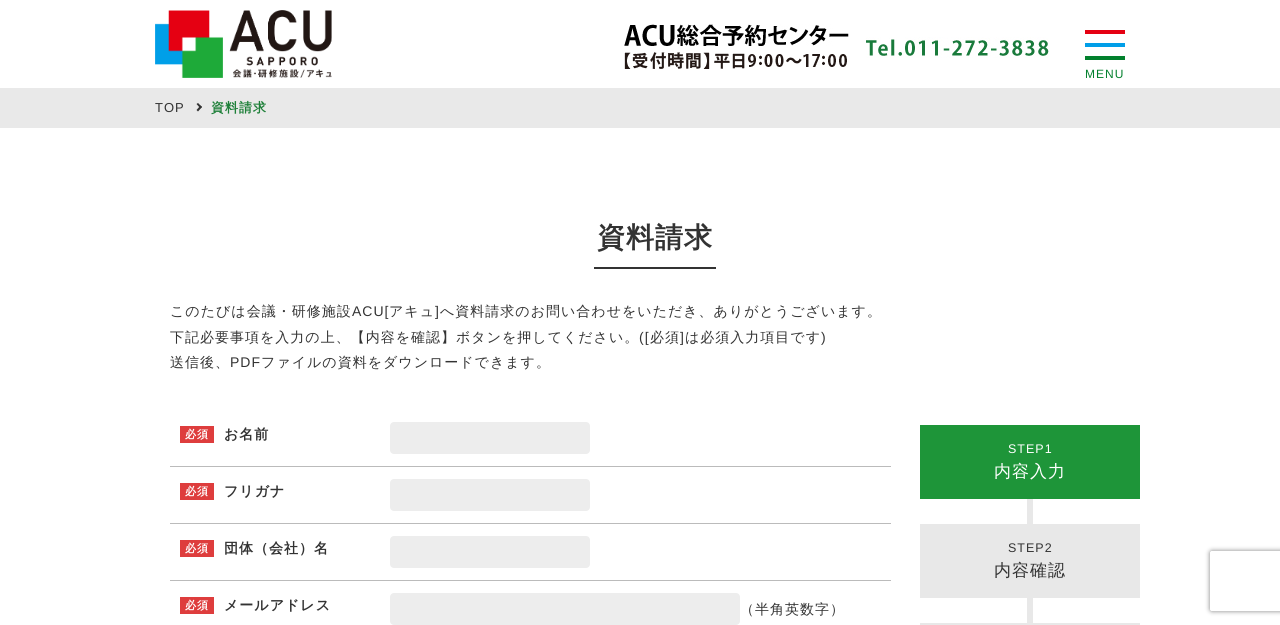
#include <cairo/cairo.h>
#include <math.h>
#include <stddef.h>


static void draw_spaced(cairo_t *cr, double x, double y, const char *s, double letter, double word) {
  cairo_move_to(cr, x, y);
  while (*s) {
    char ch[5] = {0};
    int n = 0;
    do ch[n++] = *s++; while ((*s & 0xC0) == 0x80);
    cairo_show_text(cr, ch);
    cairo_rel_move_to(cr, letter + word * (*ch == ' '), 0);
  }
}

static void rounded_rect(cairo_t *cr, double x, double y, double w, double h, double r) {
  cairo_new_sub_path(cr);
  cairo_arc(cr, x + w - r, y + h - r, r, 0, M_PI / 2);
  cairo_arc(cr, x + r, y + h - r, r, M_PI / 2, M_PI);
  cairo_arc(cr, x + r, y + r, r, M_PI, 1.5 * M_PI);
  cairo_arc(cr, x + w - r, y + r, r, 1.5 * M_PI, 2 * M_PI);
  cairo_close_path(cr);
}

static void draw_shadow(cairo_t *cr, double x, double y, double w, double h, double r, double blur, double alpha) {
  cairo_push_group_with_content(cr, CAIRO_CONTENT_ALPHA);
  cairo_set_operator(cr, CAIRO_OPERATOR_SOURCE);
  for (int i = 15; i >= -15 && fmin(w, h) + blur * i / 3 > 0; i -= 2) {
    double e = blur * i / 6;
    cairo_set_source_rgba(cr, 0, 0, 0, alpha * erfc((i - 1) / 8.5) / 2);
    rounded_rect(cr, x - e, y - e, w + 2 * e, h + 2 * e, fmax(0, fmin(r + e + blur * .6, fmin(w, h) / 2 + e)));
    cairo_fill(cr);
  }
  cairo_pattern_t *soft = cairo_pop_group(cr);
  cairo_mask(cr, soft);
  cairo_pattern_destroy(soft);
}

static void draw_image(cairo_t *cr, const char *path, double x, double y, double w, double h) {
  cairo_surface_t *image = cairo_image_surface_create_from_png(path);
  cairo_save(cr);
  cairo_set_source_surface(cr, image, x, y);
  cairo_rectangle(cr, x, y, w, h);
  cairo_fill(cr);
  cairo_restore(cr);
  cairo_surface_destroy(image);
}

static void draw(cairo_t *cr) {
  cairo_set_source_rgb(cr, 1, 1, 1);
  cairo_paint(cr);
  draw_image(cr, "images/1.png", 155, 10, 177, 68);
  draw_image(cr, "images/2.png", 624, 24, 225, 45);
  draw_image(cr, "images/3.png", 866, 37, 183, 21);
  cairo_set_source_rgb(cr, 229 / 255.0, 0, 18 / 255.0);
  cairo_rectangle(cr, 1085, 30, 40, 4);
  cairo_fill(cr);
  cairo_set_source_rgb(cr, 0, 158 / 255.0, 232 / 255.0);
  cairo_rectangle(cr, 1085, 43, 40, 4);
  cairo_fill(cr);
  cairo_set_source_rgb(cr, 2 / 255.0, 128 / 255.0, 45 / 255.0);
  cairo_rectangle(cr, 1085, 56, 40, 4);
  cairo_fill(cr);
  cairo_set_source_rgb(cr, 233 / 255.0, 233 / 255.0, 233 / 255.0);
  cairo_rectangle(cr, 0, 88, 1280, 40);
  cairo_fill(cr);
  cairo_set_source_rgb(cr, 51 / 255.0, 51 / 255.0, 51 / 255.0);
  cairo_new_path(cr);
  cairo_move_to(cr, 198, 103);
  cairo_line_to(cr, 202, 107);
  cairo_line_to(cr, 200.5, 108.5);
  cairo_line_to(cr, 196.5, 104);
  cairo_close_path(cr);
  cairo_fill(cr);
  cairo_new_path(cr);
  cairo_move_to(cr, 200.5, 105.5);
  cairo_line_to(cr, 202, 107);
  cairo_line_to(cr, 198, 111.5);
  cairo_line_to(cr, 196.5, 110);
  cairo_close_path(cr);
  cairo_fill(cr);
  cairo_rectangle(cr, 594, 267, 122, 2);
  cairo_fill(cr);
  cairo_set_source_rgb(cr, 187 / 255.0, 187 / 255.0, 187 / 255.0);
  cairo_rectangle(cr, 170, 466, 721, 1);
  cairo_fill(cr);
  cairo_set_source_rgb(cr, 237 / 255.0, 237 / 255.0, 237 / 255.0);
  rounded_rect(cr, 390, 422, 200, 32, 4);
  cairo_fill(cr);
  cairo_set_source_rgb(cr, 222 / 255.0, 61 / 255.0, 61 / 255.0);
  cairo_rectangle(cr, 180, 426, 34, 17);
  cairo_fill(cr);
  cairo_set_source_rgb(cr, 187 / 255.0, 187 / 255.0, 187 / 255.0);
  cairo_rectangle(cr, 170, 523, 721, 1);
  cairo_fill(cr);
  cairo_set_source_rgb(cr, 237 / 255.0, 237 / 255.0, 237 / 255.0);
  rounded_rect(cr, 390, 479, 200, 32, 4);
  cairo_fill(cr);
  cairo_set_source_rgb(cr, 222 / 255.0, 61 / 255.0, 61 / 255.0);
  cairo_rectangle(cr, 180, 483, 34, 17);
  cairo_fill(cr);
  cairo_set_source_rgb(cr, 187 / 255.0, 187 / 255.0, 187 / 255.0);
  cairo_rectangle(cr, 170, 580, 721, 1);
  cairo_fill(cr);
  cairo_set_source_rgb(cr, 237 / 255.0, 237 / 255.0, 237 / 255.0);
  rounded_rect(cr, 390, 536, 200, 32, 4);
  cairo_fill(cr);
  cairo_set_source_rgb(cr, 222 / 255.0, 61 / 255.0, 61 / 255.0);
  cairo_rectangle(cr, 180, 540, 34, 17);
  cairo_fill(cr);
  cairo_rectangle(cr, 180, 597, 34, 17);
  cairo_fill(cr);
  cairo_set_source_rgb(cr, 237 / 255.0, 237 / 255.0, 237 / 255.0);
  rounded_rect(cr, 390, 593, 350, 32, 4);
  cairo_fill(cr);
  cairo_set_source_rgb(cr, 30 / 255.0, 149 / 255.0, 57 / 255.0);
  cairo_rectangle(cr, 920, 425, 220, 74);
  cairo_fill(cr);
  cairo_set_source_rgb(cr, 232 / 255.0, 232 / 255.0, 232 / 255.0);
  cairo_rectangle(cr, 1027, 499, 6, 126);
  cairo_fill(cr);
  cairo_rectangle(cr, 920, 524, 220, 74);
  cairo_fill(cr);
  cairo_rectangle(cr, 920, 623, 220, 2);
  cairo_fill(cr);
  cairo_save(cr);
  cairo_set_fill_rule(cr, CAIRO_FILL_RULE_EVEN_ODD);
  cairo_new_path(cr);
  cairo_move_to(cr, 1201, 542);
  cairo_line_to(cr, 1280, 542);
  cairo_line_to(cr, 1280, 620);
  cairo_line_to(cr, 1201, 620);
  cairo_close_path(cr);
  cairo_move_to(cr, 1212, 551);
  cairo_line_to(cr, 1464, 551);
  cairo_curve_to(cr, 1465, 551, 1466, 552, 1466, 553);
  cairo_line_to(cr, 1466, 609);
  cairo_curve_to(cr, 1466, 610, 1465, 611, 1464, 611);
  cairo_line_to(cr, 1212, 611);
  cairo_curve_to(cr, 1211, 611, 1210, 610, 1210, 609);
  cairo_line_to(cr, 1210, 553);
  cairo_curve_to(cr, 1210, 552, 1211, 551, 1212, 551);
  cairo_close_path(cr);
  cairo_clip(cr);
  cairo_set_source_rgb(cr, 128 / 255.0, 128 / 255.0, 128 / 255.0);
  draw_shadow(cr, 1210, 551, 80, 60, 2, 2.5, 1);
  cairo_restore(cr);
  cairo_select_font_face(cr, "Liberation Sans", CAIRO_FONT_SLANT_NORMAL, CAIRO_FONT_WEIGHT_NORMAL);
  cairo_set_font_size(cr, 12);
  cairo_set_source_rgb(cr, 2 / 255.0, 128 / 255.0, 45 / 255.0);
  draw_spaced(cr, 1085, 78, "MENU", 1, 0);
  cairo_set_font_size(cr, 13);
  cairo_set_source_rgb(cr, 51 / 255.0, 51 / 255.0, 51 / 255.0);
  draw_spaced(cr, 155, 112, "TOP", 1, 0);
  cairo_select_font_face(cr, "WenQuanYi Zen Hei", CAIRO_FONT_SLANT_NORMAL, CAIRO_FONT_WEIGHT_BOLD);
  cairo_set_source_rgb(cr, 30 / 255.0, 128 / 255.0, 57 / 255.0);
  draw_spaced(cr, 211, 112, "資料請求", 1, 0);
  cairo_set_font_size(cr, 28);
  cairo_set_source_rgb(cr, 51 / 255.0, 51 / 255.0, 51 / 255.0);
  draw_spaced(cr, 597, 247, "資料請求", 1, 0);
  cairo_select_font_face(cr, "WenQuanYi Zen Hei Medium", CAIRO_FONT_SLANT_NORMAL, CAIRO_FONT_WEIGHT_NORMAL);
  cairo_set_font_size(cr, 14);
  draw_spaced(cr, 170, 316, "このたびは会議・研修施設", 1, 0);
  cairo_select_font_face(cr, "Liberation Sans", CAIRO_FONT_SLANT_NORMAL, CAIRO_FONT_WEIGHT_NORMAL);
  draw_spaced(cr, 352, 316, "ACU[", 1, 0);
  cairo_select_font_face(cr, "WenQuanYi Zen Hei Medium", CAIRO_FONT_SLANT_NORMAL, CAIRO_FONT_WEIGHT_NORMAL);
  draw_spaced(cr, 389, 316, "アキュ", 1, 0);
  cairo_select_font_face(cr, "Liberation Sans", CAIRO_FONT_SLANT_NORMAL, CAIRO_FONT_WEIGHT_NORMAL);
  draw_spaced(cr, 435, 316, "]", 1, 0);
  cairo_select_font_face(cr, "WenQuanYi Zen Hei Medium", CAIRO_FONT_SLANT_NORMAL, CAIRO_FONT_WEIGHT_NORMAL);
  draw_spaced(cr, 440, 316, "へ資料請求のお問い合わせをいただき、ありがとうございます。", 1, 0);
  draw_spaced(cr, 170, 342, "下記必要事項を入力の上、【内容を確認】ボタンを押してください。", 1, 0);
  cairo_select_font_face(cr, "Liberation Sans", CAIRO_FONT_SLANT_NORMAL, CAIRO_FONT_WEIGHT_NORMAL);
  draw_spaced(cr, 639, 342, "([", 1, 0);
  cairo_select_font_face(cr, "WenQuanYi Zen Hei Medium", CAIRO_FONT_SLANT_NORMAL, CAIRO_FONT_WEIGHT_NORMAL);
  draw_spaced(cr, 650, 342, "必須", 1, 0);
  cairo_select_font_face(cr, "Liberation Sans", CAIRO_FONT_SLANT_NORMAL, CAIRO_FONT_WEIGHT_NORMAL);
  draw_spaced(cr, 680, 342, "]", 1, 0);
  cairo_select_font_face(cr, "WenQuanYi Zen Hei Medium", CAIRO_FONT_SLANT_NORMAL, CAIRO_FONT_WEIGHT_NORMAL);
  draw_spaced(cr, 685, 342, "は必須入力項目です", 1, 0);
  cairo_select_font_face(cr, "Liberation Sans", CAIRO_FONT_SLANT_NORMAL, CAIRO_FONT_WEIGHT_NORMAL);
  draw_spaced(cr, 821, 342, ")", 1, 0);
  cairo_select_font_face(cr, "WenQuanYi Zen Hei Medium", CAIRO_FONT_SLANT_NORMAL, CAIRO_FONT_WEIGHT_NORMAL);
  draw_spaced(cr, 170, 367, "送信後、", 1, 0);
  cairo_select_font_face(cr, "Liberation Sans", CAIRO_FONT_SLANT_NORMAL, CAIRO_FONT_WEIGHT_NORMAL);
  draw_spaced(cr, 230, 367, "PDF", 1, 0);
  cairo_select_font_face(cr, "WenQuanYi Zen Hei Medium", CAIRO_FONT_SLANT_NORMAL, CAIRO_FONT_WEIGHT_NORMAL);
  draw_spaced(cr, 261, 367, "ファイルの資料をダウンロードできます。", 1, 0);
  cairo_select_font_face(cr, "WenQuanYi Zen Hei", CAIRO_FONT_SLANT_NORMAL, CAIRO_FONT_WEIGHT_BOLD);
  cairo_set_font_size(cr, 11);
  cairo_set_source_rgb(cr, 1, 1, 1);
  draw_spaced(cr, 185, 438, "必須", 1, 0);
  cairo_set_font_size(cr, 14);
  cairo_set_source_rgb(cr, 51 / 255.0, 51 / 255.0, 51 / 255.0);
  draw_spaced(cr, 224, 439, "お名前", 1, 0);
  cairo_set_font_size(cr, 11);
  cairo_set_source_rgb(cr, 1, 1, 1);
  draw_spaced(cr, 185, 495, "必須", 1, 0);
  cairo_set_font_size(cr, 14);
  cairo_set_source_rgb(cr, 51 / 255.0, 51 / 255.0, 51 / 255.0);
  draw_spaced(cr, 224, 496, "フリガナ", 1, 0);
  cairo_set_font_size(cr, 11);
  cairo_set_source_rgb(cr, 1, 1, 1);
  draw_spaced(cr, 185, 552, "必須", 1, 0);
  cairo_set_font_size(cr, 14);
  cairo_set_source_rgb(cr, 51 / 255.0, 51 / 255.0, 51 / 255.0);
  draw_spaced(cr, 224, 553, "団体（会社）名", 1, 0);
  cairo_set_font_size(cr, 11);
  cairo_set_source_rgb(cr, 1, 1, 1);
  draw_spaced(cr, 185, 609, "必須", 1, 0);
  cairo_set_font_size(cr, 14);
  cairo_set_source_rgb(cr, 51 / 255.0, 51 / 255.0, 51 / 255.0);
  draw_spaced(cr, 224, 610, "メールアドレス", 1, 0);
  cairo_select_font_face(cr, "WenQuanYi Zen Hei Medium", CAIRO_FONT_SLANT_NORMAL, CAIRO_FONT_WEIGHT_NORMAL);
  draw_spaced(cr, 740, 614, "（半角英数字）", 1, 0);
  cairo_select_font_face(cr, "Liberation Sans", CAIRO_FONT_SLANT_NORMAL, CAIRO_FONT_WEIGHT_NORMAL);
  cairo_set_font_size(cr, 12.5);
  cairo_set_source_rgb(cr, 1, 1, 1);
  draw_spaced(cr, 1008, 453, "STEP1", 1, 0);
  cairo_select_font_face(cr, "WenQuanYi Zen Hei Medium", CAIRO_FONT_SLANT_NORMAL, CAIRO_FONT_WEIGHT_NORMAL);
  cairo_set_font_size(cr, 17);
  draw_spaced(cr, 994, 477, "内容入力", 1, 0);
  cairo_select_font_face(cr, "Liberation Sans", CAIRO_FONT_SLANT_NORMAL, CAIRO_FONT_WEIGHT_NORMAL);
  cairo_set_font_size(cr, 12.5);
  cairo_set_source_rgb(cr, 51 / 255.0, 51 / 255.0, 51 / 255.0);
  draw_spaced(cr, 1008, 552, "STEP2", 1, 0);
  cairo_select_font_face(cr, "WenQuanYi Zen Hei Medium", CAIRO_FONT_SLANT_NORMAL, CAIRO_FONT_WEIGHT_NORMAL);
  cairo_set_font_size(cr, 17);
  draw_spaced(cr, 994, 576, "内容確認", 1, 0);
}

int main(void) {
  cairo_surface_t *surface = cairo_image_surface_create(CAIRO_FORMAT_RGB24, 1280, 625);
  cairo_t *cr = cairo_create(surface);
  cairo_font_options_t *options = cairo_font_options_create();
  cairo_font_options_set_hint_metrics(options, CAIRO_HINT_METRICS_OFF);
  cairo_font_options_set_hint_style(options, CAIRO_HINT_STYLE_NONE);
  cairo_set_font_options(cr, options);
  cairo_set_miter_limit(cr, 4);
  draw(cr);
  cairo_surface_write_to_png(surface, "out.png");
  cairo_font_options_destroy(options);
  cairo_destroy(cr);
  cairo_surface_destroy(surface);
  return 0;
}
